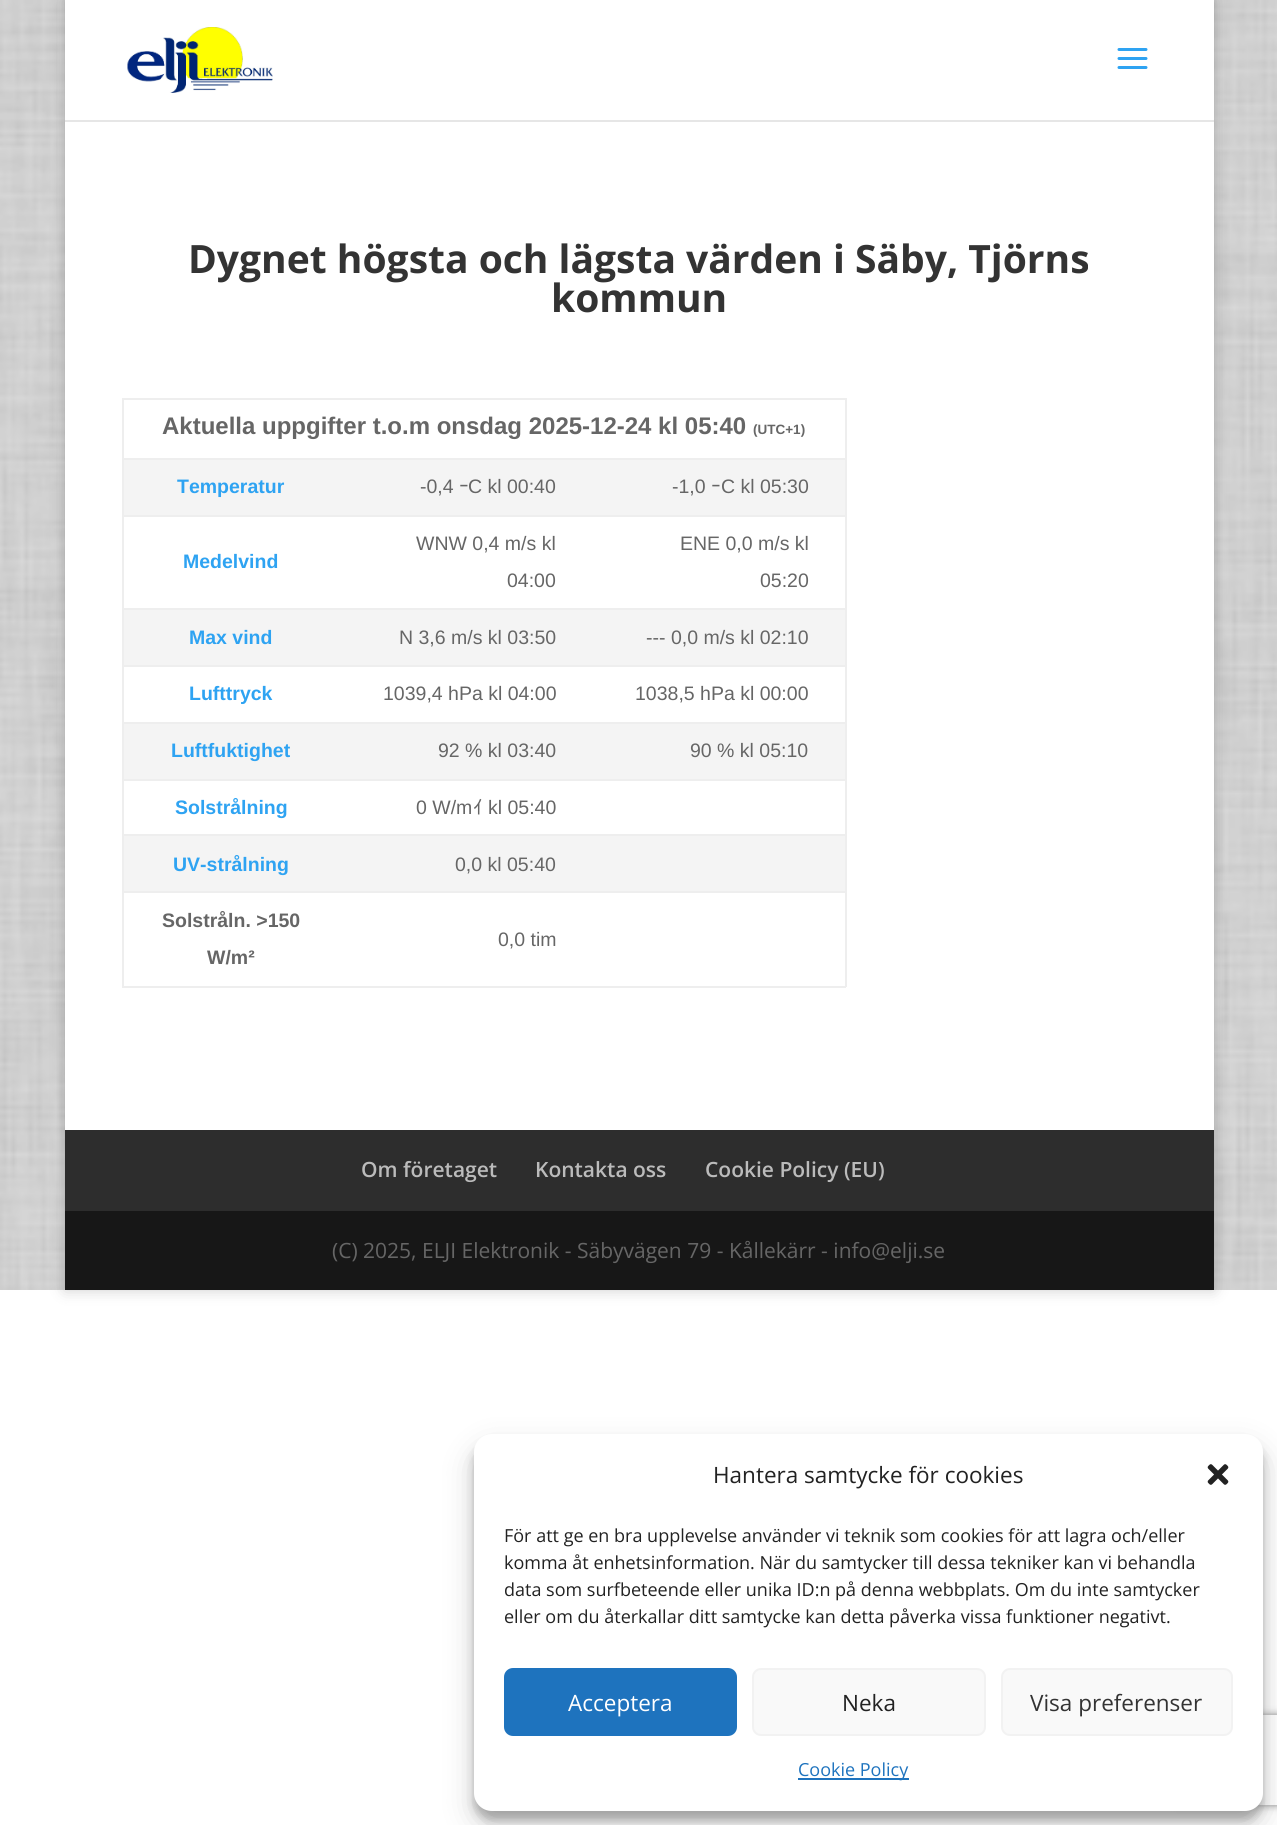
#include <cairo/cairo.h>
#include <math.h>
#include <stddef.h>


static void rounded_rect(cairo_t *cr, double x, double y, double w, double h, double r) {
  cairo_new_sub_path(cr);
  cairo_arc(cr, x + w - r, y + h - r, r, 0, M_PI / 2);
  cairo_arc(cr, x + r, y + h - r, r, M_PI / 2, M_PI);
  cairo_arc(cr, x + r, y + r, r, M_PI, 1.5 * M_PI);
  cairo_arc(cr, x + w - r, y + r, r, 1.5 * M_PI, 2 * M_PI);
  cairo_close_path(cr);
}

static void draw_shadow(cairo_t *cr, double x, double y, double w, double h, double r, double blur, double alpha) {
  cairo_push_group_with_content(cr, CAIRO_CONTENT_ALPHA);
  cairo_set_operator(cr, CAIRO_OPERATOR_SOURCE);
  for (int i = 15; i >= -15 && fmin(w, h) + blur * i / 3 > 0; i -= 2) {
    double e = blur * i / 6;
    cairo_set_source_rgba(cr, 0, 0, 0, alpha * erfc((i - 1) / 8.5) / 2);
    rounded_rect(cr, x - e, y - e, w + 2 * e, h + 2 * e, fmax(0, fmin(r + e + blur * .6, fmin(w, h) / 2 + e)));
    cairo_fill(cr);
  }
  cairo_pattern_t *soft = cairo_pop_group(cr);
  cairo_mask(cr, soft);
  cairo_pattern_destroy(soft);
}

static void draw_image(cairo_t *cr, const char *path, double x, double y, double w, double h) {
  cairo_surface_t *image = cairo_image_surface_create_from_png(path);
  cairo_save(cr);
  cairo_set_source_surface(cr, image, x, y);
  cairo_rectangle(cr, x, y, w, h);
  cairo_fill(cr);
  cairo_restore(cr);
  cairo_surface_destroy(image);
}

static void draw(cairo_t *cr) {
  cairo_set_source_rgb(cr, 1, 1, 1);
  cairo_paint(cr);
  draw_image(cr, "images/1.png", 0, 0, 1277, 1290);
  cairo_set_source_rgb(cr, 0, 0, 0);
  draw_shadow(cr, 65, 0, 1149, 1290, 0, 7.5, 0.2);
  cairo_set_source_rgb(cr, 230 / 255.0, 230 / 255.0, 230 / 255.0);
  cairo_new_path(cr);
  cairo_move_to(cr, 65, 120);
  cairo_line_to(cr, 65, 122);
  cairo_line_to(cr, 1214, 122);
  cairo_line_to(cr, 1214, 2);
  cairo_line_to(cr, 1214, 120);
  cairo_close_path(cr);
  cairo_fill(cr);
  cairo_set_source_rgb(cr, 1, 1, 1);
  cairo_rectangle(cr, 65, 0, 1149, 120);
  cairo_fill(cr);
  draw_image(cr, "images/2.png", 127, 27, 146, 66);
  draw_image(cr, "images/3.png", 1117, 48, 31, 21);
  cairo_rectangle(cr, 65, 122, 1149, 1008);
  cairo_fill(cr);
  cairo_set_source_rgb(cr, 238 / 255.0, 238 / 255.0, 238 / 255.0);
  cairo_rectangle(cr, 122, 398, 724, 2);
  cairo_fill(cr);
  cairo_rectangle(cr, 845, 398, 2, 589);
  cairo_fill(cr);
  cairo_rectangle(cr, 122, 986, 724, 2);
  cairo_fill(cr);
  cairo_rectangle(cr, 122, 398, 2, 589);
  cairo_fill(cr);
  cairo_set_source_rgb(cr, 244 / 255.0, 244 / 255.0, 244 / 255.0);
  cairo_rectangle(cr, 124, 460, 721, 55);
  cairo_fill(cr);
  cairo_set_source_rgb(cr, 238 / 255.0, 238 / 255.0, 238 / 255.0);
  cairo_rectangle(cr, 122, 458, 724, 2);
  cairo_fill(cr);
  cairo_rectangle(cr, 122, 515, 724, 2);
  cairo_fill(cr);
  cairo_set_source_rgb(cr, 244 / 255.0, 244 / 255.0, 244 / 255.0);
  cairo_rectangle(cr, 124, 610, 721, 55);
  cairo_fill(cr);
  cairo_set_source_rgb(cr, 238 / 255.0, 238 / 255.0, 238 / 255.0);
  cairo_rectangle(cr, 122, 608, 724, 2);
  cairo_fill(cr);
  cairo_rectangle(cr, 122, 665, 724, 2);
  cairo_fill(cr);
  cairo_set_source_rgb(cr, 244 / 255.0, 244 / 255.0, 244 / 255.0);
  cairo_rectangle(cr, 124, 724, 721, 55);
  cairo_fill(cr);
  cairo_set_source_rgb(cr, 238 / 255.0, 238 / 255.0, 238 / 255.0);
  cairo_rectangle(cr, 122, 722, 724, 2);
  cairo_fill(cr);
  cairo_rectangle(cr, 122, 779, 724, 2);
  cairo_fill(cr);
  cairo_set_source_rgb(cr, 244 / 255.0, 244 / 255.0, 244 / 255.0);
  cairo_rectangle(cr, 124, 836, 721, 55);
  cairo_fill(cr);
  cairo_set_source_rgb(cr, 238 / 255.0, 238 / 255.0, 238 / 255.0);
  cairo_rectangle(cr, 122, 834, 724, 2);
  cairo_fill(cr);
  cairo_rectangle(cr, 122, 891, 724, 2);
  cairo_fill(cr);
  cairo_set_source_rgb(cr, 45 / 255.0, 45 / 255.0, 45 / 255.0);
  cairo_rectangle(cr, 65, 1130, 1149, 81);
  cairo_fill(cr);
  cairo_set_source_rgb(cr, 23 / 255.0, 23 / 255.0, 23 / 255.0);
  cairo_rectangle(cr, 65, 1211, 1149, 79);
  cairo_fill(cr);
  cairo_set_source_rgb(cr, 0, 0, 0);
  draw_shadow(cr, 474, 1443, 789, 377, 18, 4.5, 0.23);
  draw_shadow(cr, 474, 1449, 789, 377, 18, 15, 0.19);
  cairo_save(cr);
  cairo_set_fill_rule(cr, CAIRO_FILL_RULE_EVEN_ODD);
  cairo_new_path(cr);
  cairo_move_to(cr, 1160, 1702);
  cairo_line_to(cr, 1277, 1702);
  cairo_line_to(cr, 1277, 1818);
  cairo_line_to(cr, 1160, 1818);
  cairo_close_path(cr);
  cairo_move_to(cr, 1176, 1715);
  cairo_line_to(cr, 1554, 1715);
  cairo_curve_to(cr, 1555.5, 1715, 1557, 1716.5, 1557, 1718);
  cairo_line_to(cr, 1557, 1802);
  cairo_curve_to(cr, 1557, 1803.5, 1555.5, 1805, 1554, 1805);
  cairo_line_to(cr, 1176, 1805);
  cairo_curve_to(cr, 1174.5, 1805, 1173, 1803.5, 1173, 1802);
  cairo_line_to(cr, 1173, 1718);
  cairo_curve_to(cr, 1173, 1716.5, 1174.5, 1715, 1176, 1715);
  cairo_close_path(cr);
  cairo_clip(cr);
  cairo_set_source_rgb(cr, 128 / 255.0, 128 / 255.0, 128 / 255.0);
  draw_shadow(cr, 1173, 1715, 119, 90, 3, 4, 1);
  cairo_restore(cr);
  cairo_set_source_rgb(cr, 1, 1, 1);
  rounded_rect(cr, 474, 1434, 789, 377, 18);
  cairo_fill(cr);
  draw_image(cr, "images/4.png", 1207, 1464, 22, 21);
  cairo_set_source_rgb(cr, 30 / 255.0, 115 / 255.0, 190 / 255.0);
  rounded_rect(cr, 505, 1669, 231, 66, 8);
  cairo_fill_preserve(cr);
  cairo_stroke(cr);
  cairo_set_source_rgb(cr, 249 / 255.0, 249 / 255.0, 249 / 255.0);
  rounded_rect(cr, 753, 1669, 232, 66, 8);
  cairo_fill_preserve(cr);
  cairo_set_source_rgb(cr, 242 / 255.0, 242 / 255.0, 242 / 255.0);
  cairo_stroke(cr);
  cairo_set_source_rgb(cr, 249 / 255.0, 249 / 255.0, 249 / 255.0);
  rounded_rect(cr, 1002, 1669, 230, 66, 8);
  cairo_fill_preserve(cr);
  cairo_set_source_rgb(cr, 242 / 255.0, 242 / 255.0, 242 / 255.0);
  cairo_stroke(cr);
  cairo_set_source_rgb(cr, 30 / 255.0, 115 / 255.0, 190 / 255.0);
  cairo_rectangle(cr, 798, 1778, 111, 2);
  cairo_fill(cr);
  cairo_select_font_face(cr, "Open Sans", CAIRO_FONT_SLANT_NORMAL, CAIRO_FONT_WEIGHT_BOLD);
  cairo_set_font_size(cr, 39);
  cairo_set_source_rgb(cr, 51 / 255.0, 51 / 255.0, 51 / 255.0);
  cairo_move_to(cr, 188, 273);
  cairo_show_text(cr, "Dygnet högsta och lägsta värden i Säby, Tjörns");
  cairo_move_to(cr, 551, 312);
  cairo_show_text(cr, "kommun");
  cairo_select_font_face(cr, "Liberation Sans", CAIRO_FONT_SLANT_NORMAL, CAIRO_FONT_WEIGHT_BOLD);
  cairo_set_font_size(cr, 24);
  cairo_set_source_rgb(cr, 102 / 255.0, 102 / 255.0, 102 / 255.0);
  cairo_move_to(cr, 162, 434);
  cairo_show_text(cr, "Aktuella uppgifter t.o.m onsdag 2025-12-24 kl 05:40");
  cairo_set_font_size(cr, 13.5);
  cairo_move_to(cr, 753, 434);
  cairo_show_text(cr, "(UTC+1)");
  cairo_set_font_size(cr, 19.5);
  cairo_set_source_rgb(cr, 46 / 255.0, 163 / 255.0, 242 / 255.0);
  cairo_move_to(cr, 177, 493);
  cairo_show_text(cr, "Temperatur");
  cairo_select_font_face(cr, "Liberation Sans", CAIRO_FONT_SLANT_NORMAL, CAIRO_FONT_WEIGHT_NORMAL);
  cairo_set_source_rgb(cr, 102 / 255.0, 102 / 255.0, 102 / 255.0);
  cairo_move_to(cr, 420, 493);
  cairo_show_text(cr, "-0,4");
  cairo_select_font_face(cr, "IPAGothic", CAIRO_FONT_SLANT_NORMAL, CAIRO_FONT_WEIGHT_NORMAL);
  cairo_move_to(cr, 459, 493);
  cairo_show_text(cr, "ｰ");
  cairo_select_font_face(cr, "Liberation Sans", CAIRO_FONT_SLANT_NORMAL, CAIRO_FONT_WEIGHT_NORMAL);
  cairo_move_to(cr, 468, 493);
  cairo_show_text(cr, "C kl 00:40");
  cairo_move_to(cr, 672, 493);
  cairo_show_text(cr, "-1,0");
  cairo_select_font_face(cr, "IPAGothic", CAIRO_FONT_SLANT_NORMAL, CAIRO_FONT_WEIGHT_NORMAL);
  cairo_move_to(cr, 711, 493);
  cairo_show_text(cr, "ｰ");
  cairo_select_font_face(cr, "Liberation Sans", CAIRO_FONT_SLANT_NORMAL, CAIRO_FONT_WEIGHT_NORMAL);
  cairo_move_to(cr, 721, 493);
  cairo_show_text(cr, "C kl 05:30");
  cairo_select_font_face(cr, "Liberation Sans", CAIRO_FONT_SLANT_NORMAL, CAIRO_FONT_WEIGHT_BOLD);
  cairo_set_source_rgb(cr, 46 / 255.0, 163 / 255.0, 242 / 255.0);
  cairo_move_to(cr, 183, 568);
  cairo_show_text(cr, "Medelvind");
  cairo_select_font_face(cr, "Liberation Sans", CAIRO_FONT_SLANT_NORMAL, CAIRO_FONT_WEIGHT_NORMAL);
  cairo_set_source_rgb(cr, 102 / 255.0, 102 / 255.0, 102 / 255.0);
  cairo_move_to(cr, 416, 550);
  cairo_show_text(cr, "WNW 0,4 m/s kl");
  cairo_move_to(cr, 507, 587);
  cairo_show_text(cr, "04:00");
  cairo_move_to(cr, 680, 550);
  cairo_show_text(cr, "ENE 0,0 m/s kl");
  cairo_move_to(cr, 760, 587);
  cairo_show_text(cr, "05:20");
  cairo_select_font_face(cr, "Liberation Sans", CAIRO_FONT_SLANT_NORMAL, CAIRO_FONT_WEIGHT_BOLD);
  cairo_set_source_rgb(cr, 46 / 255.0, 163 / 255.0, 242 / 255.0);
  cairo_move_to(cr, 189, 644);
  cairo_show_text(cr, "Max vind");
  cairo_select_font_face(cr, "Liberation Sans", CAIRO_FONT_SLANT_NORMAL, CAIRO_FONT_WEIGHT_NORMAL);
  cairo_set_source_rgb(cr, 102 / 255.0, 102 / 255.0, 102 / 255.0);
  cairo_move_to(cr, 399, 644);
  cairo_show_text(cr, "N 3,6 m/s kl 03:50");
  cairo_move_to(cr, 646, 644);
  cairo_show_text(cr, "--- 0,0 m/s kl 02:10");
  cairo_select_font_face(cr, "Liberation Sans", CAIRO_FONT_SLANT_NORMAL, CAIRO_FONT_WEIGHT_BOLD);
  cairo_set_source_rgb(cr, 46 / 255.0, 163 / 255.0, 242 / 255.0);
  cairo_move_to(cr, 189, 700);
  cairo_show_text(cr, "Lufttryck");
  cairo_select_font_face(cr, "Liberation Sans", CAIRO_FONT_SLANT_NORMAL, CAIRO_FONT_WEIGHT_NORMAL);
  cairo_set_source_rgb(cr, 102 / 255.0, 102 / 255.0, 102 / 255.0);
  cairo_move_to(cr, 383, 700);
  cairo_show_text(cr, "1039,4 hPa kl 04:00");
  cairo_move_to(cr, 635, 700);
  cairo_show_text(cr, "1038,5 hPa kl 00:00");
  cairo_select_font_face(cr, "Liberation Sans", CAIRO_FONT_SLANT_NORMAL, CAIRO_FONT_WEIGHT_BOLD);
  cairo_set_source_rgb(cr, 46 / 255.0, 163 / 255.0, 242 / 255.0);
  cairo_move_to(cr, 171, 757);
  cairo_show_text(cr, "Luftfuktighet");
  cairo_select_font_face(cr, "Liberation Sans", CAIRO_FONT_SLANT_NORMAL, CAIRO_FONT_WEIGHT_NORMAL);
  cairo_set_source_rgb(cr, 102 / 255.0, 102 / 255.0, 102 / 255.0);
  cairo_move_to(cr, 438, 757);
  cairo_show_text(cr, "92 % kl 03:40");
  cairo_move_to(cr, 690, 757);
  cairo_show_text(cr, "90 % kl 05:10");
  cairo_select_font_face(cr, "Liberation Sans", CAIRO_FONT_SLANT_NORMAL, CAIRO_FONT_WEIGHT_BOLD);
  cairo_set_source_rgb(cr, 46 / 255.0, 163 / 255.0, 242 / 255.0);
  cairo_move_to(cr, 175, 814);
  cairo_show_text(cr, "Solstrålning");
  cairo_select_font_face(cr, "Liberation Sans", CAIRO_FONT_SLANT_NORMAL, CAIRO_FONT_WEIGHT_NORMAL);
  cairo_set_source_rgb(cr, 102 / 255.0, 102 / 255.0, 102 / 255.0);
  cairo_move_to(cr, 416, 814);
  cairo_show_text(cr, "0 W/m");
  cairo_select_font_face(cr, "IPAGothic", CAIRO_FONT_SLANT_NORMAL, CAIRO_FONT_WEIGHT_NORMAL);
  cairo_move_to(cr, 473, 814);
  cairo_show_text(cr, "ｲ");
  cairo_select_font_face(cr, "Liberation Sans", CAIRO_FONT_SLANT_NORMAL, CAIRO_FONT_WEIGHT_NORMAL);
  cairo_move_to(cr, 488, 814);
  cairo_show_text(cr, "kl 05:40");
  cairo_select_font_face(cr, "Liberation Sans", CAIRO_FONT_SLANT_NORMAL, CAIRO_FONT_WEIGHT_BOLD);
  cairo_set_source_rgb(cr, 46 / 255.0, 163 / 255.0, 242 / 255.0);
  cairo_move_to(cr, 173, 871);
  cairo_show_text(cr, "UV-strålning");
  cairo_select_font_face(cr, "Liberation Sans", CAIRO_FONT_SLANT_NORMAL, CAIRO_FONT_WEIGHT_NORMAL);
  cairo_set_source_rgb(cr, 102 / 255.0, 102 / 255.0, 102 / 255.0);
  cairo_move_to(cr, 455, 871);
  cairo_show_text(cr, "0,0 kl 05:40");
  cairo_select_font_face(cr, "Liberation Sans", CAIRO_FONT_SLANT_NORMAL, CAIRO_FONT_WEIGHT_BOLD);
  cairo_move_to(cr, 162, 927);
  cairo_show_text(cr, "Solstråln. >150");
  cairo_move_to(cr, 207, 964);
  cairo_show_text(cr, "W/m²");
  cairo_select_font_face(cr, "Liberation Sans", CAIRO_FONT_SLANT_NORMAL, CAIRO_FONT_WEIGHT_NORMAL);
  cairo_move_to(cr, 498, 946);
  cairo_show_text(cr, "0,0 tim");
  cairo_select_font_face(cr, "Open Sans SemiBold", CAIRO_FONT_SLANT_NORMAL, CAIRO_FONT_WEIGHT_NORMAL);
  cairo_set_font_size(cr, 21);
  cairo_set_source_rgb(cr, 187 / 255.0, 187 / 255.0, 187 / 255.0);
  cairo_move_to(cr, 361, 1177);
  cairo_show_text(cr, "Om företaget");
  cairo_move_to(cr, 535, 1177);
  cairo_show_text(cr, "Kontakta oss");
  cairo_move_to(cr, 705, 1177);
  cairo_show_text(cr, "Cookie Policy (EU)");
  cairo_select_font_face(cr, "Open Sans", CAIRO_FONT_SLANT_NORMAL, CAIRO_FONT_WEIGHT_NORMAL);
  cairo_set_source_rgb(cr, 102 / 255.0, 102 / 255.0, 102 / 255.0);
  cairo_move_to(cr, 332, 1258);
  cairo_show_text(cr, "(C) 2025, ELJI Elektronik - Säbyvägen 79 - Kållekärr - info@elji.se");
  cairo_set_font_size(cr, 22.5);
  cairo_set_source_rgb(cr, 34 / 255.0, 34 / 255.0, 34 / 255.0);
  cairo_move_to(cr, 713, 1483);
  cairo_show_text(cr, "Hantera samtycke för cookies");
  cairo_set_font_size(cr, 18);
  cairo_move_to(cr, 504, 1542);
  cairo_show_text(cr, "För att ge en bra upplevelse använder vi teknik som cookies för att lagra och/eller");
  cairo_move_to(cr, 504, 1569);
  cairo_show_text(cr, "komma åt enhetsinformation. När du samtycker till dessa tekniker kan vi behandla");
  cairo_move_to(cr, 504, 1596);
  cairo_show_text(cr, "data som surfbeteende eller unika ID:n på denna webbplats. Om du inte samtycker");
  cairo_move_to(cr, 504, 1623);
  cairo_show_text(cr, "eller om du återkallar ditt samtycke kan detta påverka vissa funktioner negativt.");
  cairo_set_font_size(cr, 22.5);
  cairo_set_source_rgb(cr, 1, 1, 1);
  cairo_move_to(cr, 568, 1711);
  cairo_show_text(cr, "Acceptera");
  cairo_set_source_rgb(cr, 34 / 255.0, 34 / 255.0, 34 / 255.0);
  cairo_move_to(cr, 842, 1711);
  cairo_show_text(cr, "Neka");
  cairo_set_source_rgb(cr, 51 / 255.0, 51 / 255.0, 51 / 255.0);
  cairo_move_to(cr, 1030, 1711);
  cairo_show_text(cr, "Visa preferenser");
  cairo_set_font_size(cr, 18);
  cairo_set_source_rgb(cr, 30 / 255.0, 115 / 255.0, 190 / 255.0);
  cairo_move_to(cr, 798, 1776);
  cairo_show_text(cr, "Cookie Policy");
}

int main(void) {
  cairo_surface_t *surface = cairo_image_surface_create(CAIRO_FORMAT_RGB24, 1277, 1825);
  cairo_t *cr = cairo_create(surface);
  cairo_font_options_t *options = cairo_font_options_create();
  cairo_font_options_set_hint_metrics(options, CAIRO_HINT_METRICS_OFF);
  cairo_font_options_set_hint_style(options, CAIRO_HINT_STYLE_NONE);
  cairo_set_font_options(cr, options);
  cairo_set_miter_limit(cr, 4);
  draw(cr);
  cairo_surface_write_to_png(surface, "out.png");
  cairo_font_options_destroy(options);
  cairo_destroy(cr);
  cairo_surface_destroy(surface);
  return 0;
}
